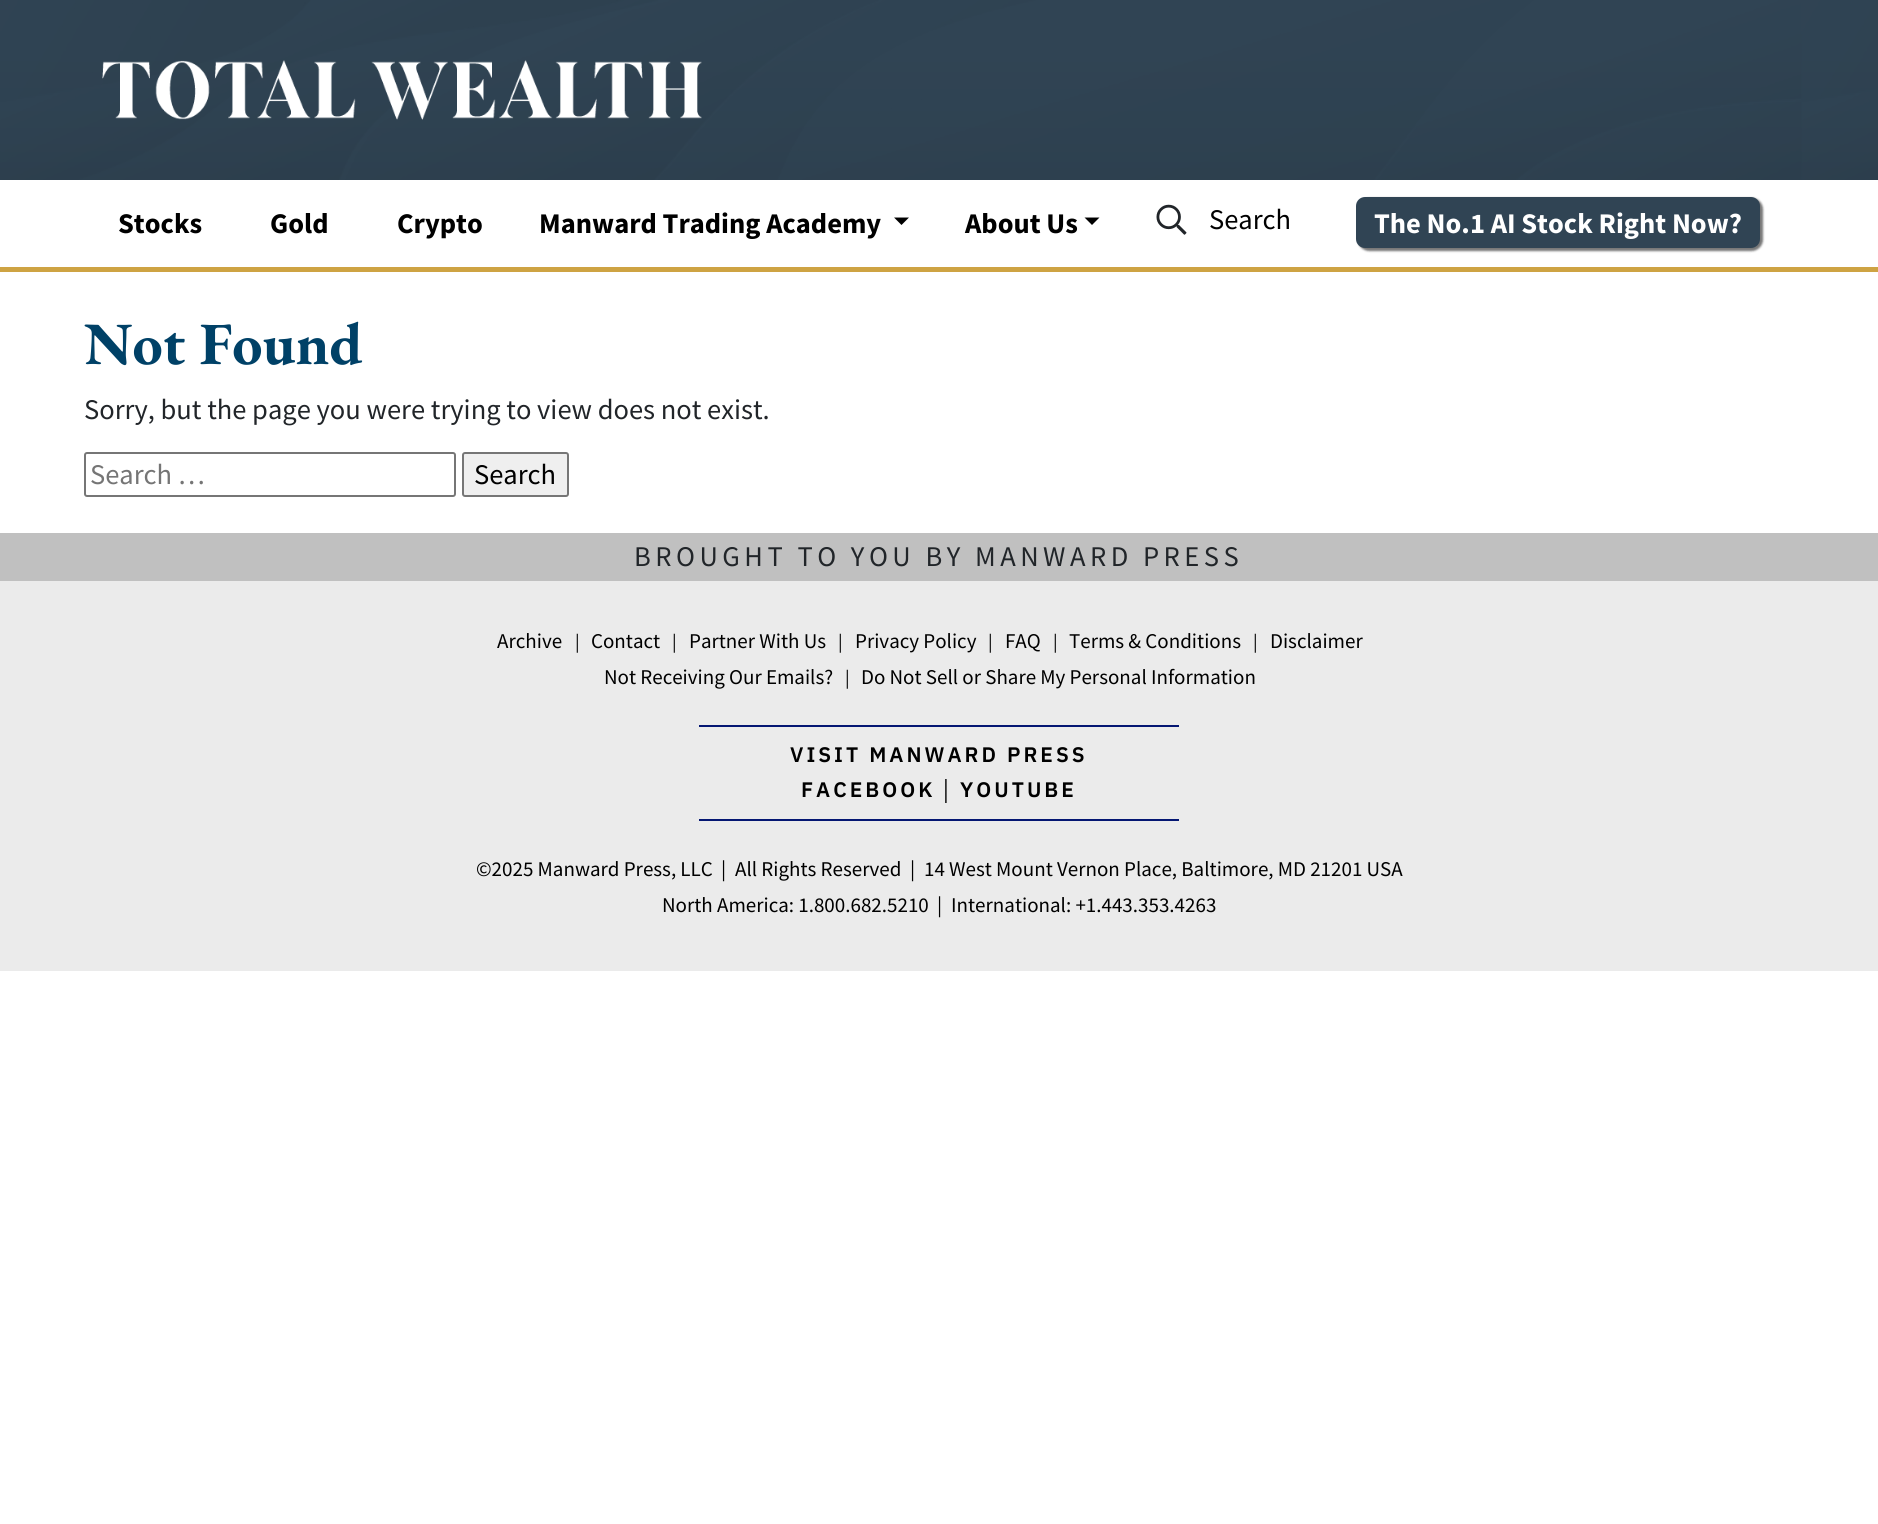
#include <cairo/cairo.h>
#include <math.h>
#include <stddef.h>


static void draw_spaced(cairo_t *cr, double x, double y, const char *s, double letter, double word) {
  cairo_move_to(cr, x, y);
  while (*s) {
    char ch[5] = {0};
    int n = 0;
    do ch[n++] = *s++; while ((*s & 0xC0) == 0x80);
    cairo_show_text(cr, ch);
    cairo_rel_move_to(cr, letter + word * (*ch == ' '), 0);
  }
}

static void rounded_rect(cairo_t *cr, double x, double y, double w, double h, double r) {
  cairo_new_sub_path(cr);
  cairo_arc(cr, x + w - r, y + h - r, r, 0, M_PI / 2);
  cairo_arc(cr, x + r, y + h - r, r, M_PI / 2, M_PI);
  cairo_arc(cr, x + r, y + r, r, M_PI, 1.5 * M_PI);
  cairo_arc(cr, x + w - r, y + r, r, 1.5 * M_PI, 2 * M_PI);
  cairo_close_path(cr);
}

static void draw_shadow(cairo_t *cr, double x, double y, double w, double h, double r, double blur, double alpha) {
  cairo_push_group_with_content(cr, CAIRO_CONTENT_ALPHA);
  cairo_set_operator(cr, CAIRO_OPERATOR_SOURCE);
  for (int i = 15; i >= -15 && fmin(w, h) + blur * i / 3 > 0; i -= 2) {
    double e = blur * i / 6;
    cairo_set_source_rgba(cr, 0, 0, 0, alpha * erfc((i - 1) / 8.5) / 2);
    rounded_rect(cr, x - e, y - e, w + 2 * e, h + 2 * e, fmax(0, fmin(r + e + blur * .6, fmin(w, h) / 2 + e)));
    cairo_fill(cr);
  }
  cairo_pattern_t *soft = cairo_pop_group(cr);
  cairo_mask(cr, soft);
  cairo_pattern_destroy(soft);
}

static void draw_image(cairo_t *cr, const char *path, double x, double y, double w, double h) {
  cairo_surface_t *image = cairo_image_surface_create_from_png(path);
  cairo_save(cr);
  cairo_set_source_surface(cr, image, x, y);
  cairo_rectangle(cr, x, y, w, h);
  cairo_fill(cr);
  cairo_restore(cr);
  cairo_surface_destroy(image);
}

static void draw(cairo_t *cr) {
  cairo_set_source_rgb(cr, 1, 1, 1);
  cairo_paint(cr);
  draw_image(cr, "images/1.png", 0, 0, 1878, 180);
  draw_image(cr, "images/2.png", 102, 60, 600, 60);
  cairo_set_source_rgb(cr, 206 / 255.0, 163 / 255.0, 67 / 255.0);
  cairo_rectangle(cr, 0, 267, 1878, 5);
  cairo_fill(cr);
  cairo_set_source_rgb(cr, 0, 0, 0);
  cairo_new_path(cr);
  cairo_move_to(cr, 894, 217.5);
  cairo_line_to(cr, 909, 217.5);
  cairo_line_to(cr, 901.5, 225);
  cairo_close_path(cr);
  cairo_fill(cr);
  cairo_new_path(cr);
  cairo_move_to(cr, 1084.5, 217.5);
  cairo_line_to(cr, 1099.5, 217.5);
  cairo_line_to(cr, 1092, 225);
  cairo_close_path(cr);
  cairo_fill(cr);
  draw_image(cr, "images/3.png", 1156, 204, 31, 31);
  cairo_set_source_rgb(cr, 0, 0, 0);
  draw_shadow(cr, 1358, 198, 405, 53, 11, 1, 0.53);
  cairo_set_source_rgb(cr, 48 / 255.0, 68 / 255.0, 84 / 255.0);
  rounded_rect(cr, 1356, 197, 404, 51, 9);
  cairo_fill(cr);
  rounded_rect(cr, 85, 453, 370, 43, 2);
  cairo_set_source_rgb(cr, 118 / 255.0, 118 / 255.0, 118 / 255.0);
  cairo_stroke(cr);
  cairo_set_source_rgb(cr, 239 / 255.0, 239 / 255.0, 239 / 255.0);
  rounded_rect(cr, 463, 453, 105, 43, 2);
  cairo_fill_preserve(cr);
  cairo_set_source_rgb(cr, 118 / 255.0, 118 / 255.0, 118 / 255.0);
  cairo_stroke(cr);
  cairo_set_source_rgb(cr, 192 / 255.0, 192 / 255.0, 192 / 255.0);
  cairo_rectangle(cr, 0, 533, 1878, 48);
  cairo_fill(cr);
  cairo_set_source_rgb(cr, 235 / 255.0, 235 / 255.0, 235 / 255.0);
  cairo_rectangle(cr, 0, 581, 1878, 390);
  cairo_fill(cr);
  cairo_set_source_rgb(cr, 4 / 255.0, 22 / 255.0, 114 / 255.0);
  cairo_rectangle(cr, 699, 725, 480, 2);
  cairo_fill(cr);
  cairo_rectangle(cr, 699, 819, 480, 2);
  cairo_fill(cr);
  cairo_select_font_face(cr, "Source Sans Pro", CAIRO_FONT_SLANT_NORMAL, CAIRO_FONT_WEIGHT_BOLD);
  cairo_set_font_size(cr, 28.5);
  cairo_set_source_rgb(cr, 0, 0, 0);
  cairo_move_to(cr, 118, 233);
  cairo_show_text(cr, "Stocks");
  cairo_move_to(cr, 270, 233);
  cairo_show_text(cr, "Gold");
  cairo_move_to(cr, 397, 233);
  cairo_show_text(cr, "Crypto");
  cairo_move_to(cr, 539, 233);
  cairo_show_text(cr, "Manward Trading Academy");
  cairo_move_to(cr, 965, 233);
  cairo_show_text(cr, "About Us");
  cairo_select_font_face(cr, "Source Sans Pro", CAIRO_FONT_SLANT_NORMAL, CAIRO_FONT_WEIGHT_NORMAL);
  cairo_move_to(cr, 1209, 229);
  cairo_show_text(cr, "Search");
  cairo_select_font_face(cr, "Source Sans Pro", CAIRO_FONT_SLANT_NORMAL, CAIRO_FONT_WEIGHT_BOLD);
  cairo_set_source_rgb(cr, 1, 1, 1);
  cairo_move_to(cr, 1374, 233);
  cairo_show_text(cr, "The No.1 AI Stock Right Now?");
  cairo_select_font_face(cr, "EB Garamond", CAIRO_FONT_SLANT_NORMAL, CAIRO_FONT_WEIGHT_BOLD);
  cairo_set_font_size(cr, 60);
  cairo_set_source_rgb(cr, 0, 65 / 255.0, 103 / 255.0);
  cairo_move_to(cr, 84, 364);
  cairo_show_text(cr, "Not Found");
  cairo_select_font_face(cr, "Source Sans Pro", CAIRO_FONT_SLANT_NORMAL, CAIRO_FONT_WEIGHT_NORMAL);
  cairo_set_font_size(cr, 28.5);
  cairo_set_source_rgb(cr, 33 / 255.0, 37 / 255.0, 41 / 255.0);
  cairo_move_to(cr, 84, 419);
  cairo_show_text(cr, "Sorry, but the page you were trying to view does not exist.");
  cairo_set_source_rgb(cr, 117 / 255.0, 117 / 255.0, 117 / 255.0);
  cairo_move_to(cr, 90, 484);
  cairo_show_text(cr, "Search …");
  cairo_set_source_rgb(cr, 0, 0, 0);
  cairo_move_to(cr, 474, 484);
  cairo_show_text(cr, "Search");
  cairo_set_source_rgb(cr, 33 / 255.0, 37 / 255.0, 41 / 255.0);
  draw_spaced(cr, 634, 566, "BROUGHT TO YOU BY MANWARD PRESS", 4.5, 0);
  cairo_set_font_size(cr, 21);
  cairo_set_source_rgb(cr, 0, 0, 0);
  cairo_move_to(cr, 497, 648);
  cairo_show_text(cr, "Archive");
  cairo_set_font_size(cr, 19);
  cairo_move_to(cr, 575, 648);
  cairo_show_text(cr, "|");
  cairo_set_font_size(cr, 21);
  cairo_move_to(cr, 591, 648);
  cairo_show_text(cr, "Contact");
  cairo_set_font_size(cr, 19);
  cairo_move_to(cr, 672, 648);
  cairo_show_text(cr, "|");
  cairo_set_font_size(cr, 21);
  cairo_move_to(cr, 689, 648);
  cairo_show_text(cr, "Partner With Us");
  cairo_set_font_size(cr, 19);
  cairo_move_to(cr, 838, 648);
  cairo_show_text(cr, "|");
  cairo_set_font_size(cr, 21);
  cairo_move_to(cr, 855, 648);
  cairo_show_text(cr, "Privacy Policy");
  cairo_set_font_size(cr, 19);
  cairo_move_to(cr, 988, 648);
  cairo_show_text(cr, "|");
  cairo_set_font_size(cr, 21);
  cairo_move_to(cr, 1005, 648);
  cairo_show_text(cr, "FAQ");
  cairo_set_font_size(cr, 19);
  cairo_move_to(cr, 1053, 648);
  cairo_show_text(cr, "|");
  cairo_set_font_size(cr, 21);
  cairo_move_to(cr, 1069, 648);
  cairo_show_text(cr, "Terms & Conditions");
  cairo_set_font_size(cr, 19);
  cairo_move_to(cr, 1253, 648);
  cairo_show_text(cr, "|");
  cairo_set_font_size(cr, 21);
  cairo_move_to(cr, 1270, 648);
  cairo_show_text(cr, "Disclaimer");
  cairo_move_to(cr, 604, 684);
  cairo_show_text(cr, "Not Receiving Our Emails?");
  cairo_set_font_size(cr, 19);
  cairo_move_to(cr, 845, 684);
  cairo_show_text(cr, "|");
  cairo_set_font_size(cr, 21);
  cairo_move_to(cr, 861, 684);
  cairo_show_text(cr, "Do Not Sell or Share My Personal Information");
  cairo_select_font_face(cr, "IBM Plex Sans SemiBold", CAIRO_FONT_SLANT_NORMAL, CAIRO_FONT_WEIGHT_NORMAL);
  draw_spaced(cr, 790, 762, "VISIT MANWARD PRESS", 3, 0);
  draw_spaced(cr, 801, 797, "FACEBOOK", 3, 0);
  cairo_select_font_face(cr, "Source Sans Pro", CAIRO_FONT_SLANT_NORMAL, CAIRO_FONT_WEIGHT_NORMAL);
  cairo_set_font_size(cr, 24);
  draw_spaced(cr, 943, 797, "|", 3, 0);
  cairo_select_font_face(cr, "IBM Plex Sans SemiBold", CAIRO_FONT_SLANT_NORMAL, CAIRO_FONT_WEIGHT_NORMAL);
  cairo_set_font_size(cr, 21);
  draw_spaced(cr, 960, 797, "YOUTUBE", 3, 0);
  cairo_select_font_face(cr, "Source Sans Pro", CAIRO_FONT_SLANT_NORMAL, CAIRO_FONT_WEIGHT_NORMAL);
  cairo_move_to(cr, 476, 876);
  cairo_show_text(cr, "©2025 Manward Press, LLC");
  cairo_move_to(cr, 721, 876);
  cairo_show_text(cr, "|");
  cairo_move_to(cr, 735, 876);
  cairo_show_text(cr, "All Rights Reserved");
  cairo_move_to(cr, 910, 876);
  cairo_show_text(cr, "|");
  cairo_move_to(cr, 924, 876);
  cairo_show_text(cr, "14 West Mount Vernon Place, Baltimore, MD 21201 USA");
  cairo_move_to(cr, 662, 912);
  cairo_show_text(cr, "North America: 1.800.682.5210");
  cairo_move_to(cr, 937, 912);
  cairo_show_text(cr, "|");
  cairo_move_to(cr, 951, 912);
  cairo_show_text(cr, "International: +1.443.353.4263");
}

int main(void) {
  cairo_surface_t *surface = cairo_image_surface_create(CAIRO_FORMAT_RGB24, 1878, 1524);
  cairo_t *cr = cairo_create(surface);
  cairo_font_options_t *options = cairo_font_options_create();
  cairo_font_options_set_hint_metrics(options, CAIRO_HINT_METRICS_OFF);
  cairo_font_options_set_hint_style(options, CAIRO_HINT_STYLE_NONE);
  cairo_set_font_options(cr, options);
  cairo_set_miter_limit(cr, 4);
  draw(cr);
  cairo_surface_write_to_png(surface, "out.png");
  cairo_font_options_destroy(options);
  cairo_destroy(cr);
  cairo_surface_destroy(surface);
  return 0;
}
